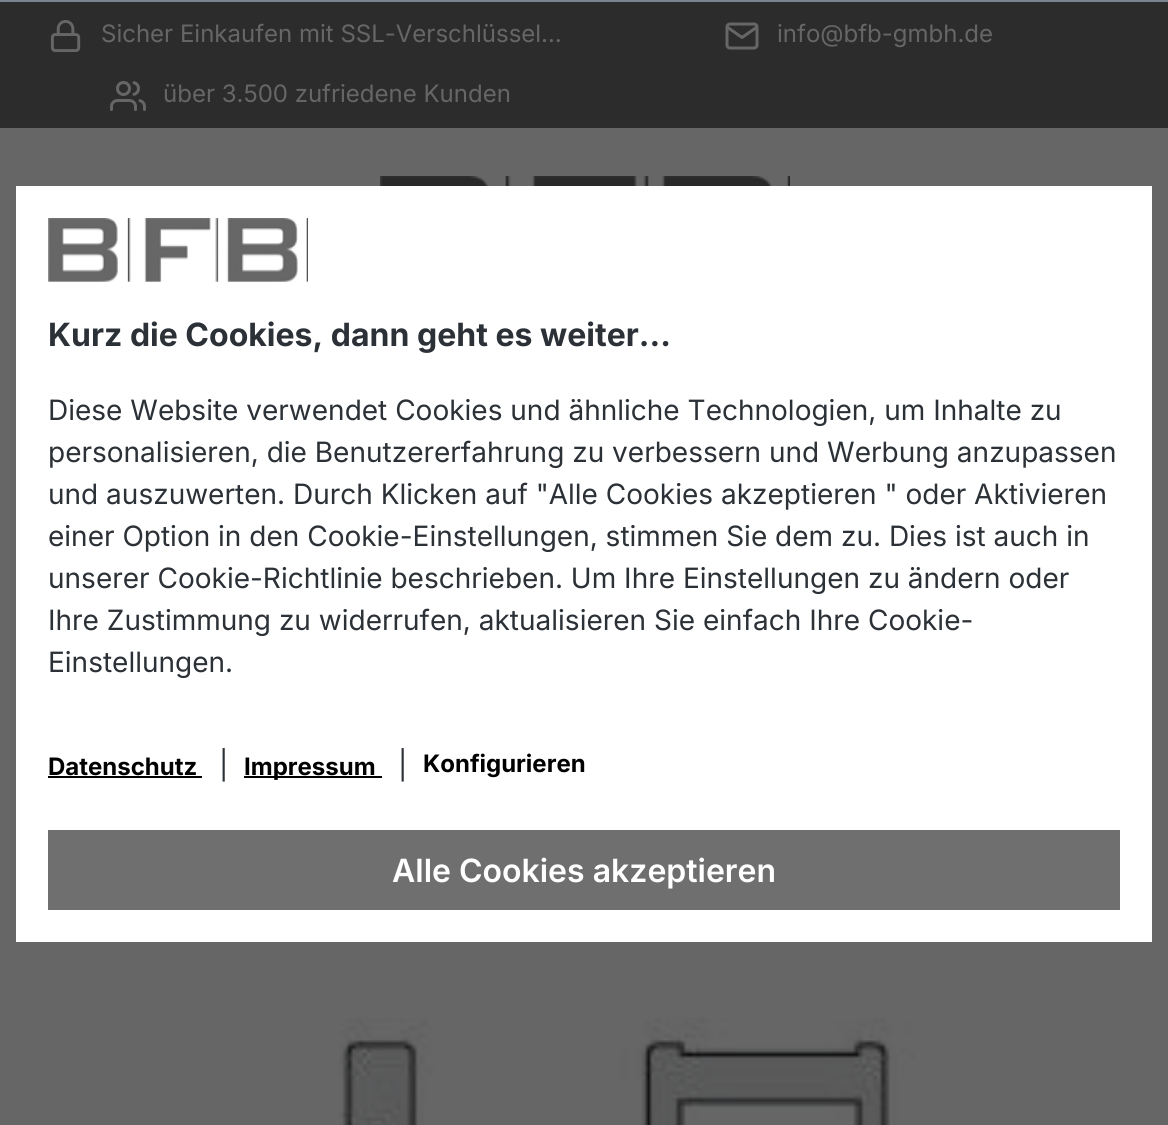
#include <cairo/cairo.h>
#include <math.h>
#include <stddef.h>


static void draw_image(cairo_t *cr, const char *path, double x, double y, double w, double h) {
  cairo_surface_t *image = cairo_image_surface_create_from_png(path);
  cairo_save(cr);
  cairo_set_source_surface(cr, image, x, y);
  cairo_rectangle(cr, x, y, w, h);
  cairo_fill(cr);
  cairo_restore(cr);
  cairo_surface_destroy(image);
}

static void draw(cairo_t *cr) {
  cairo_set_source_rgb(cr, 102 / 255.0, 102 / 255.0, 102 / 255.0);
  cairo_paint(cr);
  cairo_set_source_rgb(cr, 44 / 255.0, 44 / 255.0, 44 / 255.0);
  cairo_rectangle(cr, 0, 2, 1168, 126);
  cairo_fill(cr);
  draw_image(cr, "images/1.png", 50, 19, 31, 33);
  draw_image(cr, "images/2.png", 725, 22, 34, 28);
  draw_image(cr, "images/3.png", 110, 81, 36, 30);
  draw_image(cr, "images/4.png", 380, 176, 410, 10);
  cairo_set_source_rgb(cr, 121 / 255.0, 132 / 255.0, 144 / 255.0);
  cairo_rectangle(cr, 0, 0, 1168, 2);
  cairo_fill(cr);
  cairo_set_source_rgb(cr, 1, 1, 1);
  cairo_rectangle(cr, 16, 186, 1136, 756);
  cairo_fill(cr);
  draw_image(cr, "images/5.png", 48, 218, 260, 64);
  cairo_set_source_rgb(cr, 0, 0, 0);
  cairo_rectangle(cr, 48, 776, 154, 2);
  cairo_fill(cr);
  cairo_rectangle(cr, 244, 776, 138, 2);
  cairo_fill(cr);
  cairo_set_source_rgb(cr, 111 / 255.0, 111 / 255.0, 111 / 255.0);
  cairo_rectangle(cr, 48, 830, 1072, 80);
  cairo_fill(cr);
  draw_image(cr, "images/6.png", 339, 1017, 576, 108);
  cairo_select_font_face(cr, "Inter", CAIRO_FONT_SLANT_NORMAL, CAIRO_FONT_WEIGHT_NORMAL);
  cairo_set_font_size(cr, 24);
  cairo_set_source_rgb(cr, 102 / 255.0, 102 / 255.0, 102 / 255.0);
  cairo_move_to(cr, 101, 42);
  cairo_show_text(cr, "Sicher Einkaufen mit SSL-Verschlüssel…");
  cairo_move_to(cr, 777, 42);
  cairo_show_text(cr, "info@bfb-gmbh.de");
  cairo_move_to(cr, 163, 102);
  cairo_show_text(cr, "über 3.500 zufriedene Kunden");
  cairo_select_font_face(cr, "Inter", CAIRO_FONT_SLANT_NORMAL, CAIRO_FONT_WEIGHT_BOLD);
  cairo_set_font_size(cr, 32);
  cairo_set_source_rgb(cr, 43 / 255.0, 49 / 255.0, 54 / 255.0);
  cairo_move_to(cr, 48, 346);
  cairo_show_text(cr, "Kurz die Cookies, dann geht es weiter...");
  cairo_select_font_face(cr, "Inter", CAIRO_FONT_SLANT_NORMAL, CAIRO_FONT_WEIGHT_NORMAL);
  cairo_set_font_size(cr, 28);
  cairo_move_to(cr, 48, 420);
  cairo_show_text(cr, "Diese Website verwendet Cookies und ähnliche Technologien, um Inhalte zu");
  cairo_move_to(cr, 48, 462);
  cairo_show_text(cr, "personalisieren, die Benutzererfahrung zu verbessern und Werbung anzupassen");
  cairo_move_to(cr, 48, 504);
  cairo_show_text(cr, "und auszuwerten. Durch Klicken auf \"Alle Cookies akzeptieren \" oder Aktivieren");
  cairo_move_to(cr, 48, 546);
  cairo_show_text(cr, "einer Option in den Cookie-Einstellungen, stimmen Sie dem zu. Dies ist auch in");
  cairo_move_to(cr, 48, 588);
  cairo_show_text(cr, "unserer Cookie-Richtlinie beschrieben. Um Ihre Einstellungen zu ändern oder");
  cairo_move_to(cr, 48, 630);
  cairo_show_text(cr, "Ihre Zustimmung zu widerrufen, aktualisieren Sie einfach Ihre Cookie-");
  cairo_move_to(cr, 48, 672);
  cairo_show_text(cr, "Einstellungen.");
  cairo_select_font_face(cr, "Inter", CAIRO_FONT_SLANT_NORMAL, CAIRO_FONT_WEIGHT_BOLD);
  cairo_set_font_size(cr, 24);
  cairo_set_source_rgb(cr, 0, 0, 0);
  cairo_move_to(cr, 48, 775);
  cairo_show_text(cr, "Datenschutz");
  cairo_select_font_face(cr, "Inter", CAIRO_FONT_SLANT_NORMAL, CAIRO_FONT_WEIGHT_NORMAL);
  cairo_set_font_size(cr, 28);
  cairo_set_source_rgb(cr, 43 / 255.0, 49 / 255.0, 54 / 255.0);
  cairo_move_to(cr, 219, 775);
  cairo_show_text(cr, "|");
  cairo_select_font_face(cr, "Inter", CAIRO_FONT_SLANT_NORMAL, CAIRO_FONT_WEIGHT_BOLD);
  cairo_set_font_size(cr, 24);
  cairo_set_source_rgb(cr, 0, 0, 0);
  cairo_move_to(cr, 244, 775);
  cairo_show_text(cr, "Impressum");
  cairo_select_font_face(cr, "Inter", CAIRO_FONT_SLANT_NORMAL, CAIRO_FONT_WEIGHT_NORMAL);
  cairo_set_font_size(cr, 28);
  cairo_set_source_rgb(cr, 43 / 255.0, 49 / 255.0, 54 / 255.0);
  cairo_move_to(cr, 398, 775);
  cairo_show_text(cr, "|");
  cairo_select_font_face(cr, "Inter", CAIRO_FONT_SLANT_NORMAL, CAIRO_FONT_WEIGHT_BOLD);
  cairo_set_font_size(cr, 24);
  cairo_set_source_rgb(cr, 0, 0, 0);
  cairo_move_to(cr, 423, 772);
  cairo_show_text(cr, "Konfigurieren");
  cairo_select_font_face(cr, "Inter SemiBold", CAIRO_FONT_SLANT_NORMAL, CAIRO_FONT_WEIGHT_NORMAL);
  cairo_set_font_size(cr, 32);
  cairo_set_source_rgb(cr, 1, 1, 1);
  cairo_move_to(cr, 392, 882);
  cairo_show_text(cr, "Alle Cookies akzeptieren");
}

int main(void) {
  cairo_surface_t *surface = cairo_image_surface_create(CAIRO_FORMAT_RGB24, 1168, 1125);
  cairo_t *cr = cairo_create(surface);
  cairo_font_options_t *options = cairo_font_options_create();
  cairo_font_options_set_hint_metrics(options, CAIRO_HINT_METRICS_OFF);
  cairo_font_options_set_hint_style(options, CAIRO_HINT_STYLE_NONE);
  cairo_set_font_options(cr, options);
  cairo_set_miter_limit(cr, 4);
  draw(cr);
  cairo_surface_write_to_png(surface, "out.png");
  cairo_font_options_destroy(options);
  cairo_destroy(cr);
  cairo_surface_destroy(surface);
  return 0;
}
